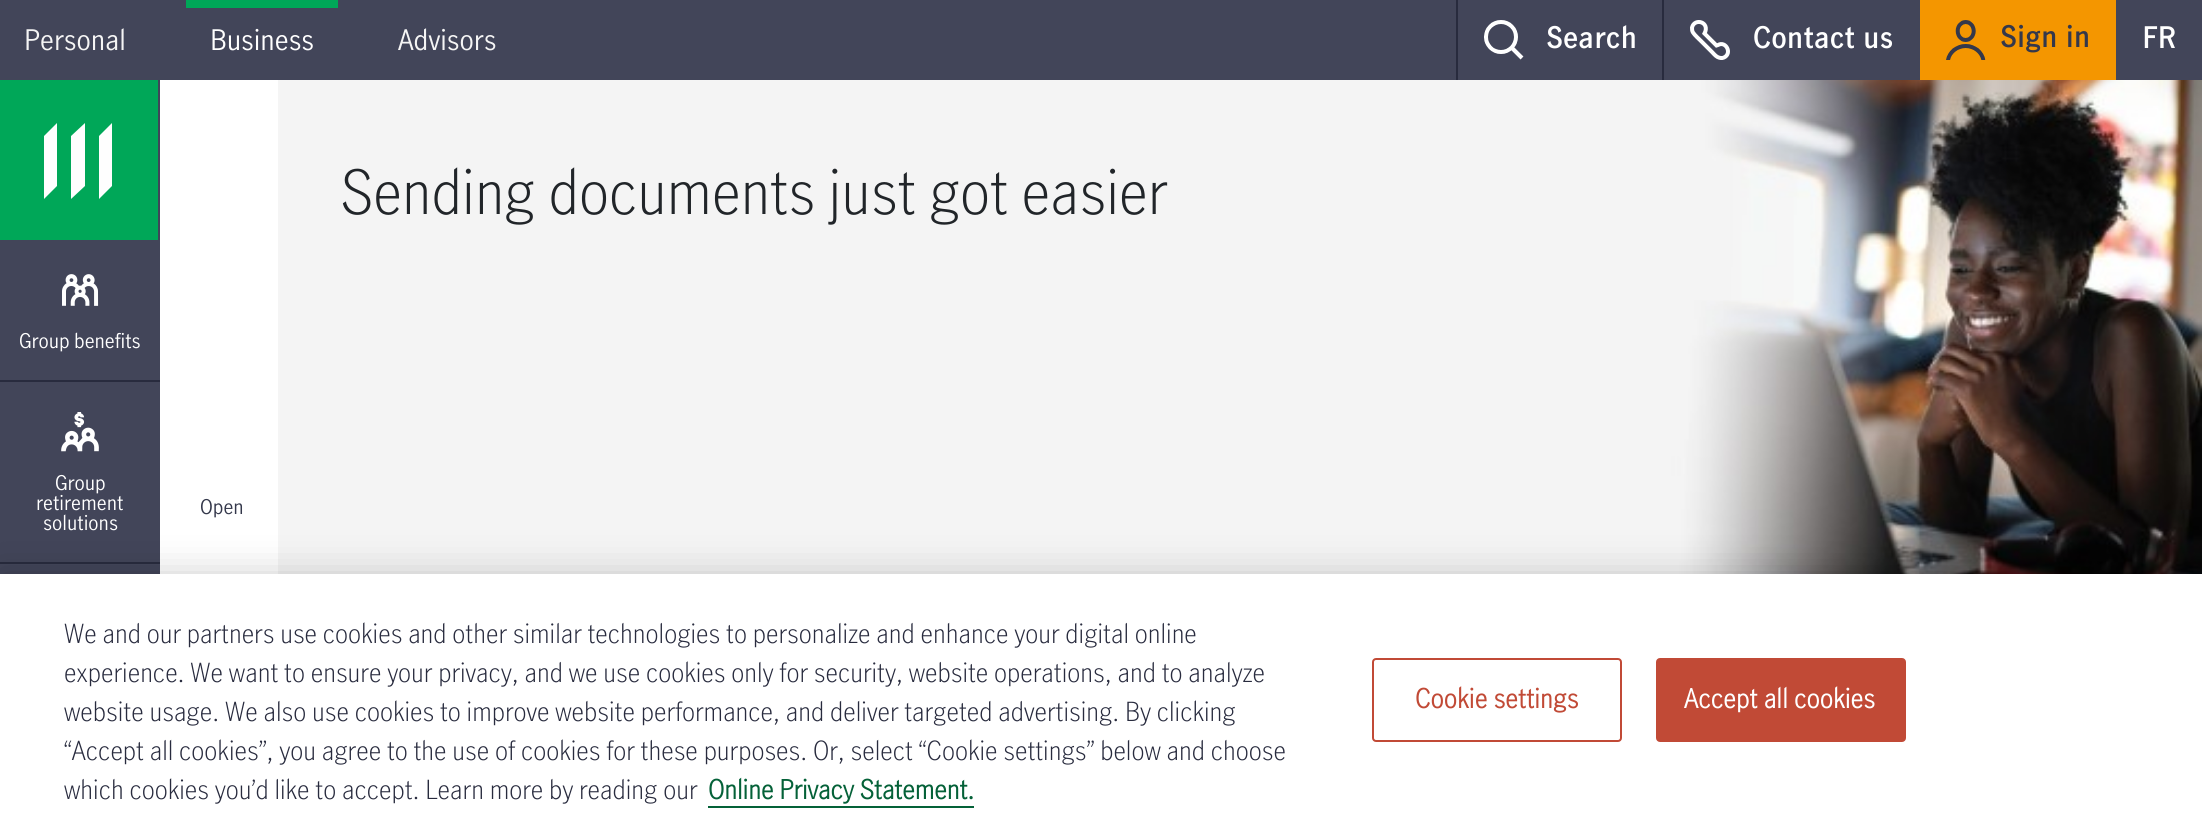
#include <cairo/cairo.h>
#include <math.h>
#include <stddef.h>


static void draw_spaced(cairo_t *cr, double x, double y, const char *s, double letter, double word) {
  cairo_move_to(cr, x, y);
  while (*s) {
    char ch[5] = {0};
    int n = 0;
    do ch[n++] = *s++; while ((*s & 0xC0) == 0x80);
    cairo_show_text(cr, ch);
    cairo_rel_move_to(cr, letter + word * (*ch == ' '), 0);
  }
}

static void rounded_rect(cairo_t *cr, double x, double y, double w, double h, double r) {
  cairo_new_sub_path(cr);
  cairo_arc(cr, x + w - r, y + h - r, r, 0, M_PI / 2);
  cairo_arc(cr, x + r, y + h - r, r, M_PI / 2, M_PI);
  cairo_arc(cr, x + r, y + r, r, M_PI, 1.5 * M_PI);
  cairo_arc(cr, x + w - r, y + r, r, 1.5 * M_PI, 2 * M_PI);
  cairo_close_path(cr);
}

static void draw_shadow(cairo_t *cr, double x, double y, double w, double h, double r, double blur, double alpha) {
  cairo_push_group_with_content(cr, CAIRO_CONTENT_ALPHA);
  cairo_set_operator(cr, CAIRO_OPERATOR_SOURCE);
  for (int i = 15; i >= -15 && fmin(w, h) + blur * i / 3 > 0; i -= 2) {
    double e = blur * i / 6;
    cairo_set_source_rgba(cr, 0, 0, 0, alpha * erfc((i - 1) / 8.5) / 2);
    rounded_rect(cr, x - e, y - e, w + 2 * e, h + 2 * e, fmax(0, fmin(r + e + blur * .6, fmin(w, h) / 2 + e)));
    cairo_fill(cr);
  }
  cairo_pattern_t *soft = cairo_pop_group(cr);
  cairo_mask(cr, soft);
  cairo_pattern_destroy(soft);
}

static void draw_image(cairo_t *cr, const char *path, double x, double y, double w, double h) {
  cairo_surface_t *image = cairo_image_surface_create_from_png(path);
  cairo_save(cr);
  cairo_set_source_surface(cr, image, x, y);
  cairo_rectangle(cr, x, y, w, h);
  cairo_fill(cr);
  cairo_restore(cr);
  cairo_surface_destroy(image);
}

static void draw(cairo_t *cr) {
  cairo_set_source_rgb(cr, 1, 1, 1);
  cairo_paint(cr);
  cairo_set_source_rgb(cr, 66 / 255.0, 69 / 255.0, 89 / 255.0);
  cairo_rectangle(cr, 0, 0, 2202, 80);
  cairo_fill(cr);
  cairo_set_source_rgb(cr, 0, 167 / 255.0, 88 / 255.0);
  cairo_rectangle(cr, 186, 0, 152, 8);
  cairo_fill(cr);
  cairo_set_source_rgb(cr, 40 / 255.0, 43 / 255.0, 62 / 255.0);
  cairo_rectangle(cr, 1456, 0, 2, 80);
  cairo_fill(cr);
  draw_image(cr, "images/1.png", 1484, 20, 40, 40);
  cairo_rectangle(cr, 1662, 0, 2, 80);
  cairo_fill(cr);
  cairo_new_path(cr);
  cairo_move_to(cr, 1718, 45);
  cairo_line_to(cr, 1716.5, 45.5);
  cairo_line_to(cr, 1704.5, 33.5);
  cairo_curve_to(cr, 1710.5, 22, 1694.5, 17.5, 1692, 27.5);
  cairo_curve_to(cr, 1692, 29, 1692, 31, 1693, 32.5);
  cairo_curve_to(cr, 1694.5, 35, 1699.5, 39.5, 1701.5, 41.5);
  cairo_line_to(cr, 1712, 52);
  cairo_curve_to(cr, 1713, 53, 1715.5, 56, 1717.5, 57);
  cairo_curve_to(cr, 1719.5, 58, 1722, 58.5, 1724, 57.5);
  cairo_curve_to(cr, 1732.5, 53.5, 1726, 40.5, 1718, 45);
  cairo_close_path(cr);
  cairo_set_source_rgb(cr, 1, 1, 1);
  cairo_set_line_width(cr, 4);
  cairo_stroke(cr);
  cairo_set_source_rgb(cr, 244 / 255.0, 150 / 255.0, 0);
  cairo_rectangle(cr, 1920, 0, 196, 80);
  cairo_fill(cr);
  draw_image(cr, "images/2.png", 1946, 20, 40, 40);
  draw_image(cr, "images/3.png", 280, 80, 1922, 494);
  cairo_set_source_rgb(cr, 66 / 255.0, 69 / 255.0, 89 / 255.0);
  cairo_rectangle(cr, 0, 80, 160, 494);
  cairo_fill(cr);
  cairo_set_source_rgb(cr, 0, 167 / 255.0, 88 / 255.0);
  cairo_rectangle(cr, 0, 80, 158, 160);
  cairo_fill(cr);
  cairo_set_source_rgb(cr, 254 / 255.0, 254 / 255.0, 254 / 255.0);
  cairo_new_path(cr);
  cairo_move_to(cr, 57, 123);
  cairo_line_to(cr, 44, 136);
  cairo_line_to(cr, 44, 199);
  cairo_line_to(cr, 57, 186);
  cairo_close_path(cr);
  cairo_move_to(cr, 85, 123);
  cairo_line_to(cr, 71, 136);
  cairo_line_to(cr, 71, 199);
  cairo_line_to(cr, 85, 186);
  cairo_close_path(cr);
  cairo_move_to(cr, 112, 123);
  cairo_line_to(cr, 99, 136);
  cairo_line_to(cr, 99, 199);
  cairo_line_to(cr, 112, 186);
  cairo_close_path(cr);
  cairo_fill(cr);
  cairo_set_source_rgb(cr, 40 / 255.0, 43 / 255.0, 62 / 255.0);
  cairo_rectangle(cr, 0, 380, 160, 2);
  cairo_fill(cr);
  draw_image(cr, "images/4.png", 62, 274, 37, 32);
  cairo_rectangle(cr, 0, 562, 160, 2);
  cairo_fill(cr);
  draw_image(cr, "images/5.png", 61, 412, 38, 40);
  cairo_set_source_rgb(cr, 245 / 255.0, 245 / 255.0, 245 / 255.0);
  cairo_rectangle(cr, 278, 80, 2, 494);
  cairo_fill(cr);
  cairo_set_source_rgb(cr, 0, 0, 0);
  draw_shadow(cr, 0, 574, 2202, 256, 0, 18, 0.2);
  cairo_set_source_rgb(cr, 1, 1, 1);
  cairo_rectangle(cr, 0, 574, 2202, 256);
  cairo_fill(cr);
  cairo_set_source_rgb(cr, 4 / 255.0, 97 / 255.0, 56 / 255.0);
  cairo_rectangle(cr, 708, 806, 266, 2);
  cairo_fill(cr);
  rounded_rect(cr, 1373, 659, 248, 82, 3);
  cairo_set_source_rgb(cr, 193 / 255.0, 74 / 255.0, 54 / 255.0);
  cairo_set_line_width(cr, 2);
  cairo_stroke(cr);
  rounded_rect(cr, 1657, 659, 248, 82, 3);
  cairo_fill_preserve(cr);
  cairo_stroke(cr);
  cairo_select_font_face(cr, "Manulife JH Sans", CAIRO_FONT_SLANT_NORMAL, CAIRO_FONT_WEIGHT_NORMAL);
  cairo_set_font_size(cr, 28);
  cairo_set_source_rgb(cr, 245 / 255.0, 245 / 255.0, 245 / 255.0);
  cairo_move_to(cr, 24, 50);
  cairo_show_text(cr, "Personal");
  cairo_set_source_rgb(cr, 1, 1, 1);
  cairo_move_to(cr, 210, 50);
  cairo_show_text(cr, "Business");
  cairo_set_source_rgb(cr, 245 / 255.0, 245 / 255.0, 245 / 255.0);
  cairo_move_to(cr, 398, 50);
  cairo_show_text(cr, "Advisors");
  cairo_select_font_face(cr, "Manulife JH Sans SemiBold", CAIRO_FONT_SLANT_NORMAL, CAIRO_FONT_WEIGHT_NORMAL);
  cairo_set_source_rgb(cr, 1, 1, 1);
  cairo_move_to(cr, 1546, 48);
  cairo_show_text(cr, "Search");
  cairo_move_to(cr, 1753, 48);
  cairo_show_text(cr, "Contact us");
  cairo_set_source_rgb(cr, 52 / 255.0, 56 / 255.0, 75 / 255.0);
  cairo_move_to(cr, 2000, 47);
  cairo_show_text(cr, "Sign in");
  cairo_set_source_rgb(cr, 1, 1, 1);
  cairo_move_to(cr, 2142, 48);
  cairo_show_text(cr, "FR");
  cairo_select_font_face(cr, "Manulife JH Sans Light", CAIRO_FONT_SLANT_NORMAL, CAIRO_FONT_WEIGHT_NORMAL);
  cairo_set_font_size(cr, 60);
  cairo_set_source_rgb(cr, 33 / 255.0, 37 / 255.0, 41 / 255.0);
  cairo_move_to(cr, 340, 214);
  cairo_show_text(cr, "Sending documents just got easier");
  cairo_select_font_face(cr, "Manulife JH Sans", CAIRO_FONT_SLANT_NORMAL, CAIRO_FONT_WEIGHT_NORMAL);
  cairo_set_font_size(cr, 20);
  cairo_set_source_rgb(cr, 1, 1, 1);
  cairo_move_to(cr, 19, 348);
  cairo_show_text(cr, "Group benefits");
  cairo_move_to(cr, 55, 490);
  cairo_show_text(cr, "Group");
  cairo_move_to(cr, 36, 510);
  cairo_show_text(cr, "retirement");
  cairo_move_to(cr, 43, 530);
  cairo_show_text(cr, "solutions");
  cairo_set_source_rgb(cr, 52 / 255.0, 56 / 255.0, 75 / 255.0);
  cairo_move_to(cr, 200, 514);
  cairo_show_text(cr, "Open");
  cairo_select_font_face(cr, "Manulife JH Sans Light", CAIRO_FONT_SLANT_NORMAL, CAIRO_FONT_WEIGHT_NORMAL);
  cairo_set_font_size(cr, 26);
  cairo_set_source_rgb(cr, 40 / 255.0, 43 / 255.0, 62 / 255.0);
  cairo_move_to(cr, 64, 643);
  cairo_show_text(cr, "We and our partners use cookies and other similar technologies to personalize and enhance your digital online");
  cairo_move_to(cr, 64, 682);
  cairo_show_text(cr, "experience. We want to ensure your privacy, and we use cookies only for security, website operations, and to analyze");
  cairo_move_to(cr, 64, 721);
  cairo_show_text(cr, "website usage. We also use cookies to improve website performance, and deliver targeted advertising. By clicking");
  cairo_move_to(cr, 64, 760);
  cairo_show_text(cr, "“Accept all cookies”, you agree to the use of cookies for these purposes. Or, select “Cookie settings” below and choose");
  cairo_move_to(cr, 64, 799);
  cairo_show_text(cr, "which cookies you’d like to accept. Learn more by reading our");
  cairo_select_font_face(cr, "Manulife JH Sans", CAIRO_FONT_SLANT_NORMAL, CAIRO_FONT_WEIGHT_BOLD);
  cairo_set_source_rgb(cr, 4 / 255.0, 97 / 255.0, 56 / 255.0);
  cairo_move_to(cr, 708, 799);
  cairo_show_text(cr, "Online Privacy Statement.");
  cairo_set_source_rgb(cr, 193 / 255.0, 74 / 255.0, 54 / 255.0);
  draw_spaced(cr, 1415, 708, "Cookie settings", 0.25, 0);
  cairo_set_source_rgb(cr, 1, 1, 1);
  draw_spaced(cr, 1684, 708, "Accept all cookies", 0.25, 0);
}

int main(void) {
  cairo_surface_t *surface = cairo_image_surface_create(CAIRO_FORMAT_RGB24, 2202, 830);
  cairo_t *cr = cairo_create(surface);
  cairo_font_options_t *options = cairo_font_options_create();
  cairo_font_options_set_hint_metrics(options, CAIRO_HINT_METRICS_OFF);
  cairo_font_options_set_hint_style(options, CAIRO_HINT_STYLE_NONE);
  cairo_set_font_options(cr, options);
  cairo_set_miter_limit(cr, 4);
  draw(cr);
  cairo_surface_write_to_png(surface, "out.png");
  cairo_font_options_destroy(options);
  cairo_destroy(cr);
  cairo_surface_destroy(surface);
  return 0;
}
